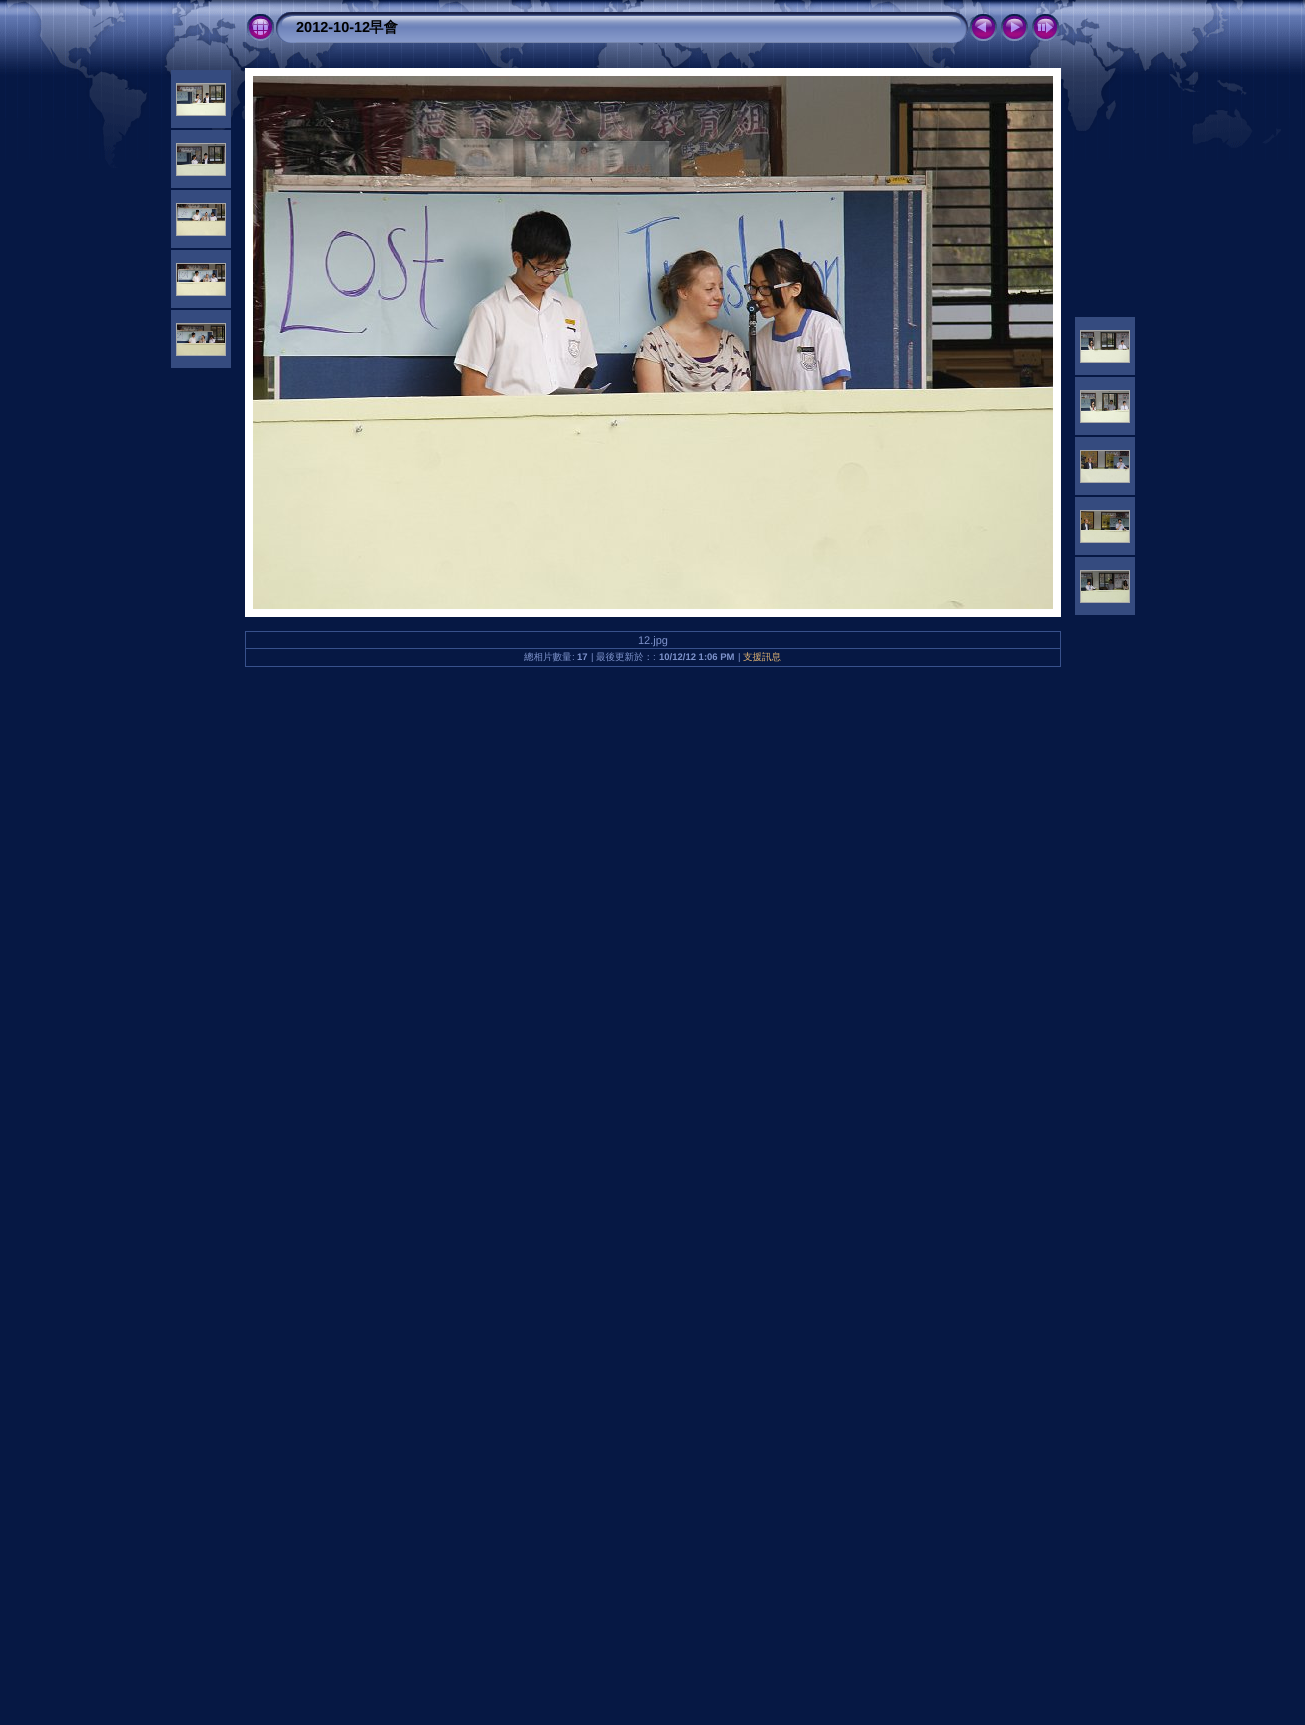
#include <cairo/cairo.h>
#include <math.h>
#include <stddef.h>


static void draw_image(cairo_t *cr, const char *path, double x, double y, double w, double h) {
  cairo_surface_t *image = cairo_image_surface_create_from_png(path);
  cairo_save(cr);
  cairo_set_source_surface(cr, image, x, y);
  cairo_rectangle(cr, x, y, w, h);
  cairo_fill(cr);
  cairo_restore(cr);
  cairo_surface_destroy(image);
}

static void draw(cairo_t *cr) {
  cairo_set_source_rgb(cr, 6 / 255.0, 24 / 255.0, 68 / 255.0);
  cairo_paint(cr);
  draw_image(cr, "images/1.png", 0, 0, 1305, 168);
  draw_image(cr, "images/2.png", 247, 14, 27, 27);
  draw_image(cr, "images/3.png", 276, 12, 20, 31);
  draw_image(cr, "images/4.png", 296, 12, 652, 31);
  draw_image(cr, "images/5.png", 948, 12, 20, 31);
  draw_image(cr, "images/6.png", 970, 14, 27, 27);
  draw_image(cr, "images/7.png", 1001, 14, 27, 27);
  draw_image(cr, "images/8.png", 1032, 14, 27, 27);
  cairo_set_source_rgb(cr, 53 / 255.0, 75 / 255.0, 127 / 255.0);
  cairo_rectangle(cr, 171, 70, 60, 58);
  cairo_fill(cr);
  cairo_rectangle(cr, 176.5, 83.5, 49, 32);
  cairo_set_source_rgb(cr, 170 / 255.0, 170 / 255.0, 170 / 255.0);
  cairo_set_line_width(cr, 1);
  cairo_stroke(cr);
  draw_image(cr, "images/9.png", 177, 84, 48, 31);
  cairo_set_source_rgb(cr, 53 / 255.0, 75 / 255.0, 127 / 255.0);
  cairo_rectangle(cr, 171, 130, 60, 58);
  cairo_fill(cr);
  cairo_rectangle(cr, 176.5, 143.5, 49, 32);
  cairo_set_source_rgb(cr, 170 / 255.0, 170 / 255.0, 170 / 255.0);
  cairo_stroke(cr);
  draw_image(cr, "images/10.png", 177, 144, 48, 31);
  cairo_set_source_rgb(cr, 53 / 255.0, 75 / 255.0, 127 / 255.0);
  cairo_rectangle(cr, 171, 190, 60, 58);
  cairo_fill(cr);
  cairo_rectangle(cr, 176.5, 203.5, 49, 32);
  cairo_set_source_rgb(cr, 170 / 255.0, 170 / 255.0, 170 / 255.0);
  cairo_stroke(cr);
  draw_image(cr, "images/11.png", 177, 204, 48, 31);
  cairo_set_source_rgb(cr, 53 / 255.0, 75 / 255.0, 127 / 255.0);
  cairo_rectangle(cr, 171, 250, 60, 58);
  cairo_fill(cr);
  cairo_rectangle(cr, 176.5, 263.5, 49, 32);
  cairo_set_source_rgb(cr, 170 / 255.0, 170 / 255.0, 170 / 255.0);
  cairo_stroke(cr);
  draw_image(cr, "images/12.png", 177, 264, 48, 31);
  cairo_set_source_rgb(cr, 53 / 255.0, 75 / 255.0, 127 / 255.0);
  cairo_rectangle(cr, 171, 310, 60, 58);
  cairo_fill(cr);
  cairo_rectangle(cr, 176.5, 323.5, 49, 32);
  cairo_set_source_rgb(cr, 170 / 255.0, 170 / 255.0, 170 / 255.0);
  cairo_stroke(cr);
  draw_image(cr, "images/13.png", 177, 324, 48, 31);
  cairo_rectangle(cr, 249, 72, 808, 541);
  cairo_set_source_rgb(cr, 1, 1, 1);
  cairo_set_line_width(cr, 8);
  cairo_stroke(cr);
  draw_image(cr, "images/14.png", 253, 76, 800, 533);
  cairo_set_source_rgb(cr, 53 / 255.0, 75 / 255.0, 127 / 255.0);
  cairo_rectangle(cr, 1075, 317, 60, 58);
  cairo_fill(cr);
  cairo_rectangle(cr, 1080.5, 330.5, 49, 32);
  cairo_set_source_rgb(cr, 170 / 255.0, 170 / 255.0, 170 / 255.0);
  cairo_set_line_width(cr, 1);
  cairo_stroke(cr);
  draw_image(cr, "images/15.png", 1081, 331, 48, 31);
  cairo_set_source_rgb(cr, 53 / 255.0, 75 / 255.0, 127 / 255.0);
  cairo_rectangle(cr, 1075, 377, 60, 58);
  cairo_fill(cr);
  cairo_rectangle(cr, 1080.5, 390.5, 49, 32);
  cairo_set_source_rgb(cr, 170 / 255.0, 170 / 255.0, 170 / 255.0);
  cairo_stroke(cr);
  draw_image(cr, "images/16.png", 1081, 391, 48, 31);
  cairo_set_source_rgb(cr, 53 / 255.0, 75 / 255.0, 127 / 255.0);
  cairo_rectangle(cr, 1075, 437, 60, 58);
  cairo_fill(cr);
  cairo_rectangle(cr, 1080.5, 450.5, 49, 32);
  cairo_set_source_rgb(cr, 170 / 255.0, 170 / 255.0, 170 / 255.0);
  cairo_stroke(cr);
  draw_image(cr, "images/17.png", 1081, 451, 48, 31);
  cairo_set_source_rgb(cr, 53 / 255.0, 75 / 255.0, 127 / 255.0);
  cairo_rectangle(cr, 1075, 497, 60, 58);
  cairo_fill(cr);
  cairo_rectangle(cr, 1080.5, 510.5, 49, 32);
  cairo_set_source_rgb(cr, 170 / 255.0, 170 / 255.0, 170 / 255.0);
  cairo_stroke(cr);
  draw_image(cr, "images/18.png", 1081, 511, 48, 31);
  cairo_set_source_rgb(cr, 53 / 255.0, 75 / 255.0, 127 / 255.0);
  cairo_rectangle(cr, 1075, 557, 60, 58);
  cairo_fill(cr);
  cairo_rectangle(cr, 1080.5, 570.5, 49, 32);
  cairo_set_source_rgb(cr, 170 / 255.0, 170 / 255.0, 170 / 255.0);
  cairo_stroke(cr);
  draw_image(cr, "images/19.png", 1081, 571, 48, 31);
  cairo_set_source_rgb(cr, 56 / 255.0, 81 / 255.0, 140 / 255.0);
  cairo_rectangle(cr, 245, 631, 816, 1);
  cairo_fill(cr);
  cairo_rectangle(cr, 245, 648, 816, 1);
  cairo_fill(cr);
  cairo_rectangle(cr, 1060, 648, 1, 19);
  cairo_fill(cr);
  cairo_rectangle(cr, 1060, 631, 1, 18);
  cairo_fill(cr);
  cairo_rectangle(cr, 245, 666, 816, 1);
  cairo_fill(cr);
  cairo_rectangle(cr, 245, 648, 1, 19);
  cairo_fill(cr);
  cairo_rectangle(cr, 245, 631, 1, 18);
  cairo_fill(cr);
  cairo_select_font_face(cr, "Liberation Sans", CAIRO_FONT_SLANT_NORMAL, CAIRO_FONT_WEIGHT_BOLD);
  cairo_set_font_size(cr, 14.5);
  cairo_set_source_rgb(cr, 0, 0, 0);
  cairo_move_to(cr, 296, 32);
  cairo_show_text(cr, "2012-10-12");
  cairo_select_font_face(cr, "WenQuanYi Zen Hei", CAIRO_FONT_SLANT_NORMAL, CAIRO_FONT_WEIGHT_BOLD);
  cairo_move_to(cr, 369, 32);
  cairo_show_text(cr, "早會");
  cairo_select_font_face(cr, "Liberation Sans", CAIRO_FONT_SLANT_NORMAL, CAIRO_FONT_WEIGHT_NORMAL);
  cairo_set_font_size(cr, 11);
  cairo_set_source_rgb(cr, 126 / 255.0, 147 / 255.0, 204 / 255.0);
  cairo_move_to(cr, 638, 644);
  cairo_show_text(cr, "12.jpg");
  cairo_select_font_face(cr, "WenQuanYi Zen Hei Medium", CAIRO_FONT_SLANT_NORMAL, CAIRO_FONT_WEIGHT_NORMAL);
  cairo_set_font_size(cr, 9.5);
  cairo_move_to(cr, 524, 660);
  cairo_show_text(cr, "總相片數量");
  cairo_select_font_face(cr, "Liberation Sans", CAIRO_FONT_SLANT_NORMAL, CAIRO_FONT_WEIGHT_NORMAL);
  cairo_move_to(cr, 572, 660);
  cairo_show_text(cr, ":");
  cairo_select_font_face(cr, "Liberation Sans", CAIRO_FONT_SLANT_NORMAL, CAIRO_FONT_WEIGHT_BOLD);
  cairo_move_to(cr, 577, 660);
  cairo_show_text(cr, "17");
  cairo_select_font_face(cr, "Liberation Sans", CAIRO_FONT_SLANT_NORMAL, CAIRO_FONT_WEIGHT_NORMAL);
  cairo_move_to(cr, 591, 660);
  cairo_show_text(cr, "|");
  cairo_select_font_face(cr, "WenQuanYi Zen Hei Medium", CAIRO_FONT_SLANT_NORMAL, CAIRO_FONT_WEIGHT_NORMAL);
  cairo_move_to(cr, 596, 660);
  cairo_show_text(cr, "最後更新於：");
  cairo_select_font_face(cr, "Liberation Sans", CAIRO_FONT_SLANT_NORMAL, CAIRO_FONT_WEIGHT_NORMAL);
  cairo_move_to(cr, 653, 660);
  cairo_show_text(cr, ":");
  cairo_select_font_face(cr, "Liberation Sans", CAIRO_FONT_SLANT_NORMAL, CAIRO_FONT_WEIGHT_BOLD);
  cairo_move_to(cr, 659, 660);
  cairo_show_text(cr, "10/12/12 1:06 PM");
  cairo_select_font_face(cr, "Liberation Sans", CAIRO_FONT_SLANT_NORMAL, CAIRO_FONT_WEIGHT_NORMAL);
  cairo_move_to(cr, 738, 660);
  cairo_show_text(cr, "|");
  cairo_select_font_face(cr, "WenQuanYi Zen Hei Medium", CAIRO_FONT_SLANT_NORMAL, CAIRO_FONT_WEIGHT_NORMAL);
  cairo_set_source_rgb(cr, 229 / 255.0, 182 / 255.0, 115 / 255.0);
  cairo_move_to(cr, 743, 660);
  cairo_show_text(cr, "支援訊息");
}

int main(void) {
  cairo_surface_t *surface = cairo_image_surface_create(CAIRO_FORMAT_RGB24, 1305, 1725);
  cairo_t *cr = cairo_create(surface);
  cairo_font_options_t *options = cairo_font_options_create();
  cairo_font_options_set_hint_metrics(options, CAIRO_HINT_METRICS_OFF);
  cairo_font_options_set_hint_style(options, CAIRO_HINT_STYLE_NONE);
  cairo_set_font_options(cr, options);
  cairo_set_miter_limit(cr, 4);
  draw(cr);
  cairo_surface_write_to_png(surface, "out.png");
  cairo_font_options_destroy(options);
  cairo_destroy(cr);
  cairo_surface_destroy(surface);
  return 0;
}
